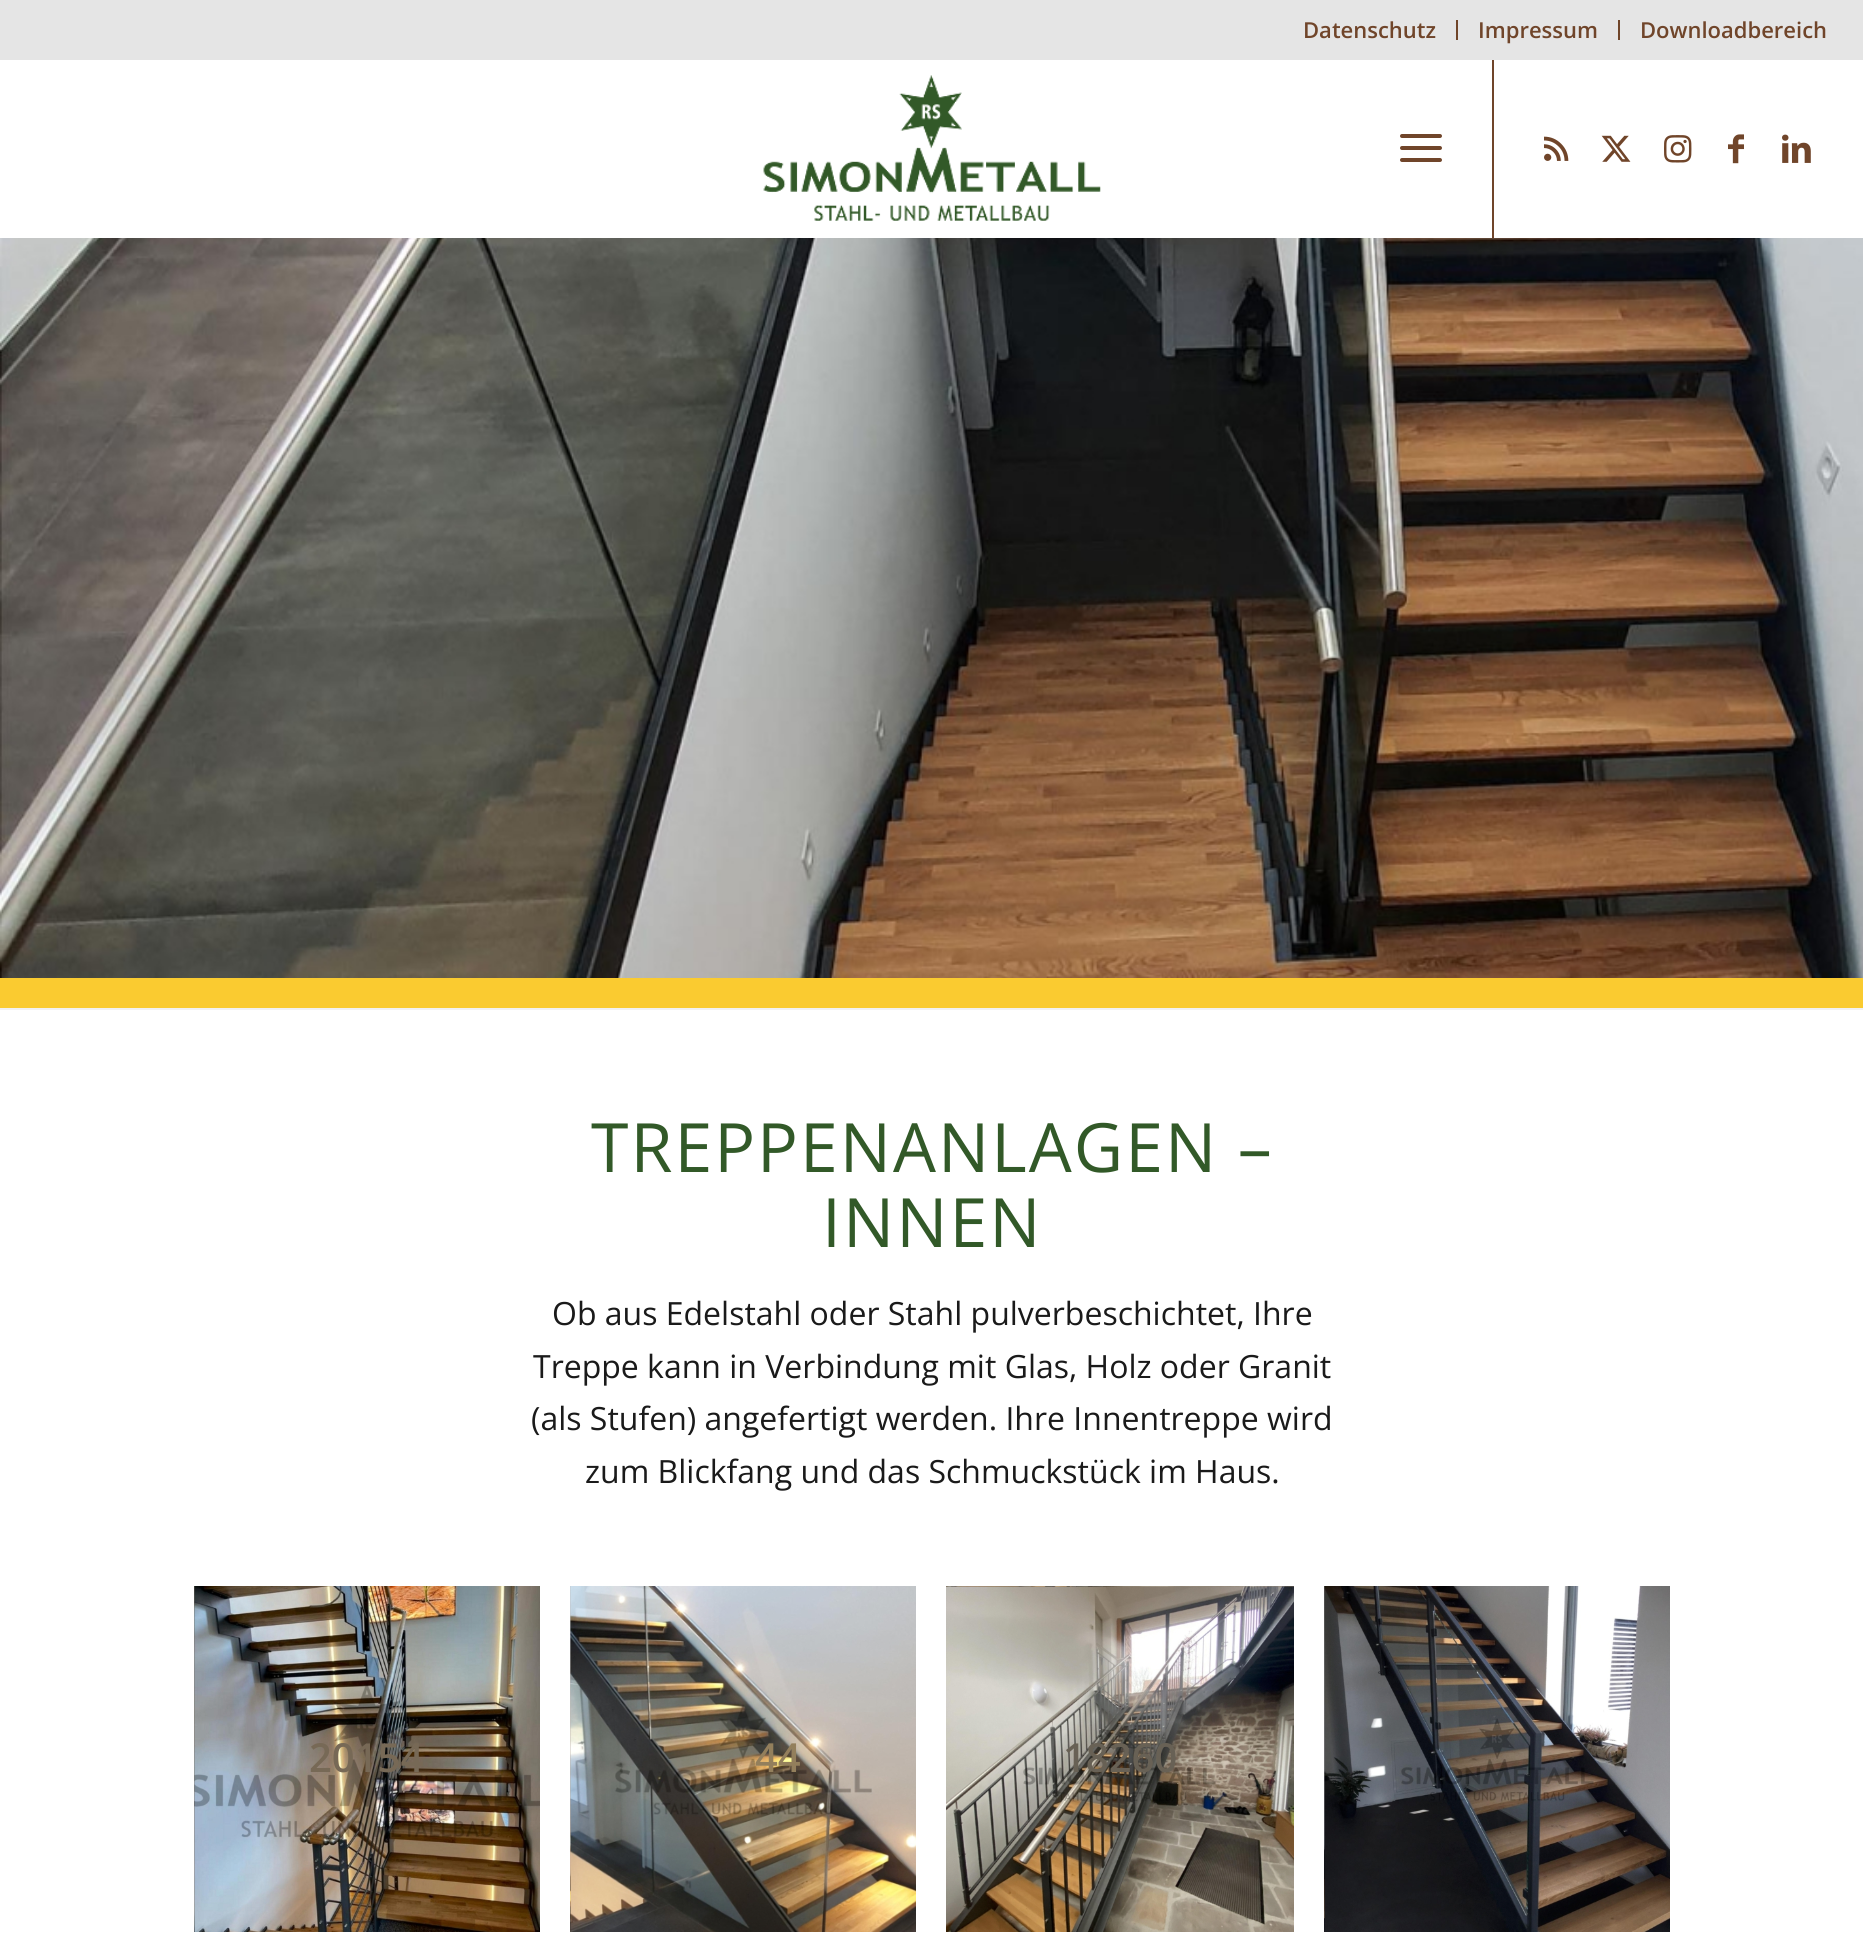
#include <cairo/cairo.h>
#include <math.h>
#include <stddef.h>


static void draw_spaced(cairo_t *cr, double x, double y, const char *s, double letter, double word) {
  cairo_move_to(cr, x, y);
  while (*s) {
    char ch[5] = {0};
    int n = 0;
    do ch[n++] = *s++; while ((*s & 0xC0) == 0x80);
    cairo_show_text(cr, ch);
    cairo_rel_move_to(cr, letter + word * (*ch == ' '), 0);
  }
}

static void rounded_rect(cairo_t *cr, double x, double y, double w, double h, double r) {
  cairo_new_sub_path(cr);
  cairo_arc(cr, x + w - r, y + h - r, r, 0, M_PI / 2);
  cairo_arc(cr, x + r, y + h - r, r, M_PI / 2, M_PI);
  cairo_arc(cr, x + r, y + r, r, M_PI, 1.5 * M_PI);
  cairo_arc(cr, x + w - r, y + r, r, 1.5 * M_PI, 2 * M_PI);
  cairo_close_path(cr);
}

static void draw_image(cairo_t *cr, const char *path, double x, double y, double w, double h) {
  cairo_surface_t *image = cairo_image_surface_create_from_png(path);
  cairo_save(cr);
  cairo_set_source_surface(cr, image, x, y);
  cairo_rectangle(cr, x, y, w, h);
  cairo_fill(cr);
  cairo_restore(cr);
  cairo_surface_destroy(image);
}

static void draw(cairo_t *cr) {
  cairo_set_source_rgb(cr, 1, 1, 1);
  cairo_paint(cr);
  cairo_set_source_rgb(cr, 112 / 255.0, 69 / 255.0, 42 / 255.0);
  cairo_rectangle(cr, 1492, 58, 2, 180);
  cairo_fill(cr);
  cairo_set_source_rgb(cr, 229 / 255.0, 229 / 255.0, 229 / 255.0);
  cairo_rectangle(cr, 0, 0, 1863, 60);
  cairo_fill(cr);
  cairo_set_source_rgb(cr, 112 / 255.0, 69 / 255.0, 42 / 255.0);
  cairo_rectangle(cr, 1456, 20, 2, 20);
  cairo_fill(cr);
  cairo_rectangle(cr, 1618, 20, 2, 20);
  cairo_fill(cr);
  draw_image(cr, "images/1.png", 763, 75, 338, 146);
  rounded_rect(cr, 1400, 146, 42, 4, 2);
  cairo_fill(cr);
  rounded_rect(cr, 1400, 134, 42, 4, 2);
  cairo_fill(cr);
  rounded_rect(cr, 1400, 158, 42, 4, 2);
  cairo_fill(cr);
  draw_image(cr, "images/2.png", 1544, 136, 25, 25);
  draw_image(cr, "images/3.png", 1601, 135, 30, 27);
  draw_image(cr, "images/4.png", 1664, 135, 28, 28);
  draw_image(cr, "images/5.png", 1728, 134, 16, 30);
  draw_image(cr, "images/6.png", 1782, 134, 29, 29);
  draw_image(cr, "images/7.png", 0, 238, 1863, 740);
  cairo_set_source_rgb(cr, 250 / 255.0, 203 / 255.0, 48 / 255.0);
  cairo_rectangle(cr, 0, 978, 1863, 30);
  cairo_fill(cr);
  cairo_set_source_rgb(cr, 242 / 255.0, 242 / 255.0, 242 / 255.0);
  cairo_rectangle(cr, 0, 1008, 1863, 2);
  cairo_fill(cr);
  draw_image(cr, "images/8.png", 194, 1586, 346, 346);
  draw_image(cr, "images/9.png", 570, 1586, 346, 346);
  draw_image(cr, "images/10.png", 946, 1586, 348, 346);
  draw_image(cr, "images/11.png", 1324, 1586, 346, 346);
  cairo_select_font_face(cr, "Open Sans SemiBold", CAIRO_FONT_SLANT_NORMAL, CAIRO_FONT_WEIGHT_NORMAL);
  cairo_set_font_size(cr, 22);
  cairo_set_source_rgb(cr, 112 / 255.0, 69 / 255.0, 42 / 255.0);
  cairo_move_to(cr, 1303, 38);
  cairo_show_text(cr, "Datenschutz");
  cairo_move_to(cr, 1478, 38);
  cairo_show_text(cr, "Impressum");
  cairo_move_to(cr, 1640, 38);
  cairo_show_text(cr, "Downloadbereich");
  cairo_select_font_face(cr, "Open Sans", CAIRO_FONT_SLANT_NORMAL, CAIRO_FONT_WEIGHT_NORMAL);
  cairo_set_font_size(cr, 68);
  cairo_set_source_rgb(cr, 50 / 255.0, 89 / 255.0, 40 / 255.0);
  draw_spaced(cr, 591, 1172, "TREPPENANLAGEN –", 2, 0);
  draw_spaced(cr, 822, 1247, "INNEN", 2, 0);
  cairo_set_font_size(cr, 32);
  cairo_set_source_rgb(cr, 26 / 255.0, 26 / 255.0, 26 / 255.0);
  cairo_move_to(cr, 552, 1325);
  cairo_show_text(cr, "Ob aus Edelstahl oder Stahl pulverbeschichtet, Ihre");
  cairo_move_to(cr, 533, 1378);
  cairo_show_text(cr, "Treppe kann in Verbindung mit Glas, Holz oder Granit");
  cairo_move_to(cr, 531, 1430);
  cairo_show_text(cr, "(als Stufen) angefertigt werden. Ihre Innentreppe wird");
  cairo_move_to(cr, 585, 1483);
  cairo_show_text(cr, "zum Blickfang und das Schmuckstück im Haus.");
  cairo_select_font_face(cr, "Open Sans SemiBold", CAIRO_FONT_SLANT_NORMAL, CAIRO_FONT_WEIGHT_NORMAL);
  cairo_set_font_size(cr, 40);
  cairo_set_source_rgb(cr, 119 / 255.0, 105 / 255.0, 86 / 255.0);
  cairo_move_to(cr, 309, 1772);
  cairo_show_text(cr, "20154");
  cairo_set_source_rgb(cr, 147 / 255.0, 127 / 255.0, 92 / 255.0);
  cairo_move_to(cr, 755, 1772);
  cairo_show_text(cr, "44");
  cairo_set_source_rgb(cr, 104 / 255.0, 97 / 255.0, 85 / 255.0);
  cairo_move_to(cr, 1063, 1772);
  cairo_show_text(cr, "18260");
}

int main(void) {
  cairo_surface_t *surface = cairo_image_surface_create(CAIRO_FORMAT_RGB24, 1863, 1935);
  cairo_t *cr = cairo_create(surface);
  cairo_font_options_t *options = cairo_font_options_create();
  cairo_font_options_set_hint_metrics(options, CAIRO_HINT_METRICS_OFF);
  cairo_font_options_set_hint_style(options, CAIRO_HINT_STYLE_NONE);
  cairo_set_font_options(cr, options);
  cairo_set_miter_limit(cr, 4);
  draw(cr);
  cairo_surface_write_to_png(surface, "out.png");
  cairo_font_options_destroy(options);
  cairo_destroy(cr);
  cairo_surface_destroy(surface);
  return 0;
}
